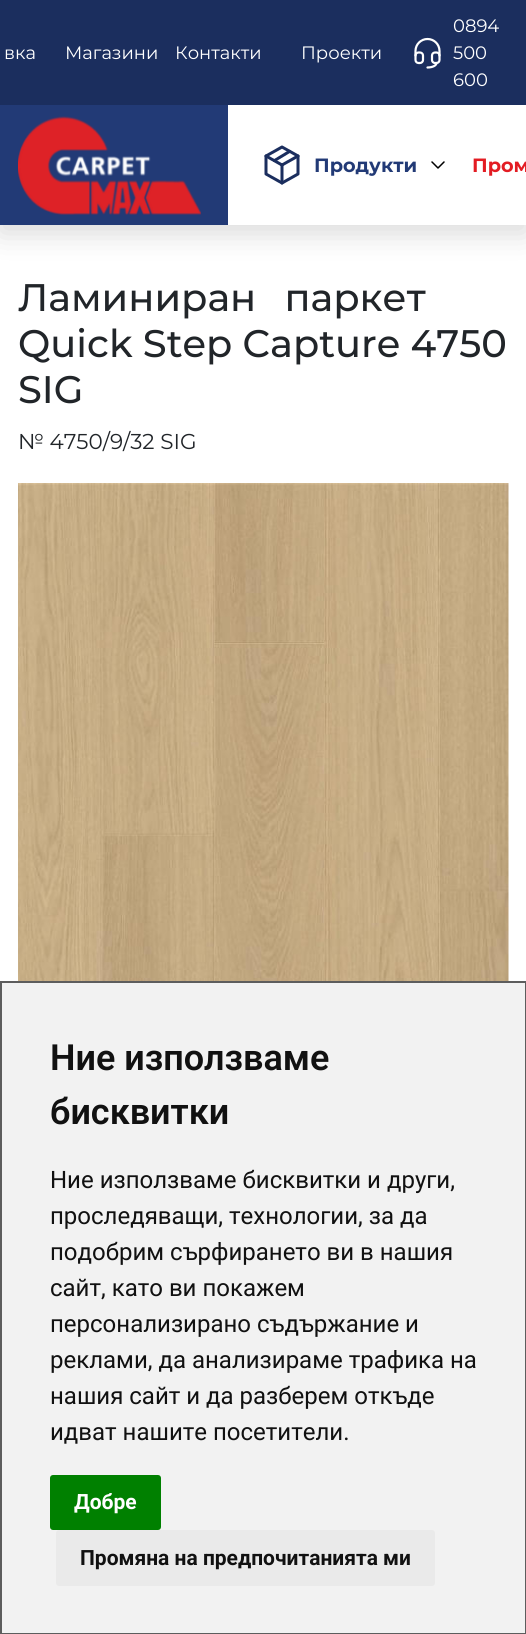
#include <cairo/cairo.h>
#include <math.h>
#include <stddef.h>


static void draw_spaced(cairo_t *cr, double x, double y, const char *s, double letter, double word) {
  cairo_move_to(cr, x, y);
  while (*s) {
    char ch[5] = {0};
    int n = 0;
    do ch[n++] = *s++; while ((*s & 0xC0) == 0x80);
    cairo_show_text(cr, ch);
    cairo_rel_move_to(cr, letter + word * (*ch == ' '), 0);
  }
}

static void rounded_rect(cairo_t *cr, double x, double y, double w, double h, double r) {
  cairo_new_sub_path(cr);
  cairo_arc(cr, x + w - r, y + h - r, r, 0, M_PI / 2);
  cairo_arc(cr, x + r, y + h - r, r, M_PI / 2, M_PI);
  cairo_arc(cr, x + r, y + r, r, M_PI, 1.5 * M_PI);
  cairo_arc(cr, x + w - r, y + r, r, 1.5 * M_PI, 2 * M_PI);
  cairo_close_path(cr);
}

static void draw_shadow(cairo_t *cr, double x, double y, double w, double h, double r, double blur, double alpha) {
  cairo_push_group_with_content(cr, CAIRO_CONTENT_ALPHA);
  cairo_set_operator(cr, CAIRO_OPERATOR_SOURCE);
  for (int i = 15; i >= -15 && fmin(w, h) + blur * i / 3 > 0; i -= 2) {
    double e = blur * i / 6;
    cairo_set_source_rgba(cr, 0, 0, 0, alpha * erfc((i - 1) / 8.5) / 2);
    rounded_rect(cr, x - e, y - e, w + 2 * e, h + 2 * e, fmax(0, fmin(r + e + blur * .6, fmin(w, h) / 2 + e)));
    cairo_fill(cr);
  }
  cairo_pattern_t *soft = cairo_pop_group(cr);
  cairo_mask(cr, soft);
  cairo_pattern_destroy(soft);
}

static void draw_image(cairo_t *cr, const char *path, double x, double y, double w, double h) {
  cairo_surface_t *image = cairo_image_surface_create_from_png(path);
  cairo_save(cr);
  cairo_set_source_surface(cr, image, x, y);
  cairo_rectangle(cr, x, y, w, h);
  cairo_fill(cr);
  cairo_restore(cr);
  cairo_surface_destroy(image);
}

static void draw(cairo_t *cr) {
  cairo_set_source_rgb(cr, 1, 1, 1);
  cairo_paint(cr);
  cairo_set_source_rgb(cr, 0, 0, 0);
  draw_shadow(cr, 0, 8, 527, 225, 0, 15, 0.15);
  cairo_set_source_rgb(cr, 27 / 255.0, 46 / 255.0, 94 / 255.0);
  cairo_rectangle(cr, 0, 0, 526, 105);
  cairo_fill(cr);
  draw_image(cr, "images/1.png", 414, 37, 27, 32);
  cairo_set_source_rgb(cr, 1, 1, 1);
  cairo_rectangle(cr, 228, 105, 298, 120);
  cairo_fill(cr);
  cairo_set_source_rgb(cr, 34 / 255.0, 58 / 255.0, 118 / 255.0);
  cairo_rectangle(cr, 0, 105, 228, 120);
  cairo_fill(cr);
  draw_image(cr, "images/2.png", 18, 116, 183, 99);
  draw_image(cr, "images/3.png", 264, 145, 36, 40);
  cairo_new_path(cr);
  cairo_move_to(cr, 432, 162);
  cairo_line_to(cr, 438, 168);
  cairo_line_to(cr, 444, 162);
  cairo_set_source_rgb(cr, 0, 0, 0);
  cairo_set_line_width(cr, 1.5);
  cairo_set_line_cap(cr, CAIRO_LINE_CAP_ROUND);
  cairo_set_line_join(cr, CAIRO_LINE_JOIN_ROUND);
  cairo_stroke(cr);
  draw_image(cr, "images/4.png", 18, 483, 491, 498);
  cairo_set_source_rgb(cr, 242 / 255.0, 242 / 255.0, 242 / 255.0);
  cairo_rectangle(cr, 1, 982, 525, 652);
  cairo_fill_preserve(cr);
  cairo_set_source_rgb(cr, 93 / 255.0, 93 / 255.0, 93 / 255.0);
  cairo_set_line_width(cr, 2);
  cairo_set_line_cap(cr, CAIRO_LINE_CAP_BUTT);
  cairo_set_line_join(cr, CAIRO_LINE_JOIN_MITER);
  cairo_stroke(cr);
  cairo_set_source_rgb(cr, 0, 128 / 255.0, 0);
  rounded_rect(cr, 50, 1475, 111, 55, 3);
  cairo_fill(cr);
  cairo_set_source_rgb(cr, 234 / 255.0, 234 / 255.0, 234 / 255.0);
  rounded_rect(cr, 56, 1530, 379, 56, 3);
  cairo_fill(cr);
  cairo_select_font_face(cr, "Montserrat", CAIRO_FONT_SLANT_NORMAL, CAIRO_FONT_WEIGHT_NORMAL);
  cairo_set_font_size(cr, 18);
  cairo_set_source_rgb(cr, 1, 1, 1);
  cairo_move_to(cr, 4, 59);
  cairo_show_text(cr, "вка");
  cairo_move_to(cr, 65, 59);
  cairo_show_text(cr, "Магазини");
  cairo_move_to(cr, 175, 59);
  cairo_show_text(cr, "Контакти");
  cairo_move_to(cr, 301, 59);
  cairo_show_text(cr, "Проекти");
  cairo_move_to(cr, 453, 32);
  cairo_show_text(cr, "0894");
  cairo_move_to(cr, 453, 59);
  cairo_show_text(cr, "500");
  cairo_move_to(cr, 453, 86);
  cairo_show_text(cr, "600");
  cairo_select_font_face(cr, "Montserrat", CAIRO_FONT_SLANT_NORMAL, CAIRO_FONT_WEIGHT_BOLD);
  cairo_set_font_size(cr, 19.25);
  cairo_set_source_rgb(cr, 34 / 255.0, 58 / 255.0, 118 / 255.0);
  cairo_move_to(cr, 314, 172);
  cairo_show_text(cr, "Продукти");
  cairo_set_source_rgb(cr, 227 / 255.0, 28 / 255.0, 35 / 255.0);
  cairo_move_to(cr, 472, 172);
  cairo_show_text(cr, "Пром");
  cairo_select_font_face(cr, "Montserrat Medium", CAIRO_FONT_SLANT_NORMAL, CAIRO_FONT_WEIGHT_NORMAL);
  cairo_set_font_size(cr, 38.4);
  cairo_set_source_rgb(cr, 33 / 255.0, 37 / 255.0, 41 / 255.0);
  draw_spaced(cr, 18, 311, "Ламиниран паркет", 0, 18);
  cairo_move_to(cr, 18, 357);
  cairo_show_text(cr, "Quick Step Capture 4750");
  cairo_move_to(cr, 18, 403);
  cairo_show_text(cr, "SIG");
  cairo_select_font_face(cr, "Montserrat", CAIRO_FONT_SLANT_NORMAL, CAIRO_FONT_WEIGHT_NORMAL);
  cairo_set_font_size(cr, 21.5);
  cairo_move_to(cr, 18, 449);
  cairo_show_text(cr, "№ 4750/9/32 SIG");
  cairo_select_font_face(cr, "Roboto SemiBold", CAIRO_FONT_SLANT_NORMAL, CAIRO_FONT_WEIGHT_NORMAL);
  cairo_set_font_size(cr, 36);
  cairo_set_source_rgb(cr, 17 / 255.0, 17 / 255.0, 17 / 255.0);
  cairo_move_to(cr, 50, 1070);
  cairo_show_text(cr, "Ние използваме");
  cairo_move_to(cr, 50, 1124);
  cairo_show_text(cr, "бисквитки");
  cairo_select_font_face(cr, "Roboto", CAIRO_FONT_SLANT_NORMAL, CAIRO_FONT_WEIGHT_NORMAL);
  cairo_set_font_size(cr, 24);
  cairo_move_to(cr, 50, 1188);
  cairo_show_text(cr, "Ние използваме бисквитки и други,");
  cairo_move_to(cr, 50, 1224);
  cairo_show_text(cr, "проследяващи, технологии, за да");
  cairo_move_to(cr, 50, 1260);
  cairo_show_text(cr, "подобрим сърфирането ви в нашия");
  cairo_move_to(cr, 50, 1296);
  cairo_show_text(cr, "сайт, като ви покажем");
  cairo_move_to(cr, 50, 1332);
  cairo_show_text(cr, "персонализирано съдържание и");
  cairo_move_to(cr, 50, 1368);
  cairo_show_text(cr, "реклами, да анализираме трафика на");
  cairo_move_to(cr, 50, 1404);
  cairo_show_text(cr, "нашия сайт и да разберем откъде");
  cairo_move_to(cr, 50, 1440);
  cairo_show_text(cr, "идват нашите посетители.");
  cairo_select_font_face(cr, "Roboto", CAIRO_FONT_SLANT_NORMAL, CAIRO_FONT_WEIGHT_BOLD);
  cairo_set_font_size(cr, 21);
  cairo_set_source_rgb(cr, 1, 1, 1);
  cairo_move_to(cr, 74, 1509);
  cairo_show_text(cr, "Добре");
  cairo_set_source_rgb(cr, 17 / 255.0, 17 / 255.0, 17 / 255.0);
  cairo_move_to(cr, 80, 1565);
  cairo_show_text(cr, "Промяна на предпочитанията ми");
}

int main(void) {
  cairo_surface_t *surface = cairo_image_surface_create(CAIRO_FORMAT_RGB24, 526, 1634);
  cairo_t *cr = cairo_create(surface);
  cairo_font_options_t *options = cairo_font_options_create();
  cairo_font_options_set_hint_metrics(options, CAIRO_HINT_METRICS_OFF);
  cairo_font_options_set_hint_style(options, CAIRO_HINT_STYLE_NONE);
  cairo_set_font_options(cr, options);
  cairo_set_miter_limit(cr, 4);
  draw(cr);
  cairo_surface_write_to_png(surface, "out.png");
  cairo_font_options_destroy(options);
  cairo_destroy(cr);
  cairo_surface_destroy(surface);
  return 0;
}
